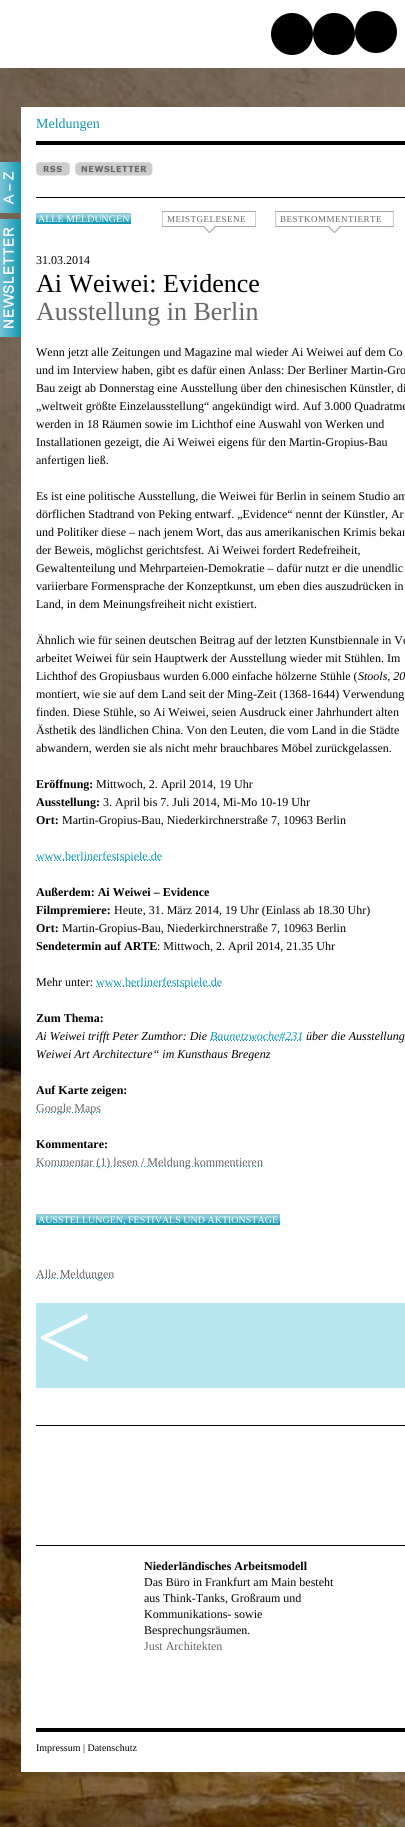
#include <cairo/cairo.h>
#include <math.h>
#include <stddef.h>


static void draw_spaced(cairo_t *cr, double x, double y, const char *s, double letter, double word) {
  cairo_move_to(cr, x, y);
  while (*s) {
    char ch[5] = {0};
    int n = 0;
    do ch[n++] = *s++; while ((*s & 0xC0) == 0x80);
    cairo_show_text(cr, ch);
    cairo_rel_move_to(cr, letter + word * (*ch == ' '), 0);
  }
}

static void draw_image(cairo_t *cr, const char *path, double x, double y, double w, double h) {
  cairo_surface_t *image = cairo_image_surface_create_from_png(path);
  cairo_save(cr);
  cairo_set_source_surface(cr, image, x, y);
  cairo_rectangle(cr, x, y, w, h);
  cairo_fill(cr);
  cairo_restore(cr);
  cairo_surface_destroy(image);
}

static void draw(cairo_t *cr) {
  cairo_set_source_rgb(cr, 1, 1, 1);
  cairo_paint(cr);
  draw_image(cr, "images/1.png", 0, 68, 405, 1759);
  cairo_set_source_rgb(cr, 0, 0, 0);
  cairo_arc(cr, 292, 34, 21, 0, 2 * M_PI);
  cairo_fill(cr);
  cairo_arc(cr, 334, 34, 21, 0, 2 * M_PI);
  cairo_fill(cr);
  cairo_arc(cr, 376, 32, 21, 0, 2 * M_PI);
  cairo_fill(cr);
  cairo_set_source_rgb(cr, 1, 1, 1);
  cairo_rectangle(cr, 21, 107, 384, 1665);
  cairo_fill(cr);
  cairo_set_source_rgb(cr, 0, 0, 0);
  cairo_rectangle(cr, 36, 141, 369, 4);
  cairo_fill(cr);
  draw_image(cr, "images/2.png", 0, 162, 21, 51);
  draw_image(cr, "images/3.png", 0, 219, 21, 118);
  cairo_rectangle(cr, 36, 197, 369, 1);
  cairo_fill(cr);
  draw_image(cr, "images/4.png", 36, 162, 34, 14);
  draw_image(cr, "images/5.png", 75, 162, 78, 14);
  draw_image(cr, "images/6.png", 36, 213, 95, 11);
  draw_image(cr, "images/7.png", 162, 211, 94, 22);
  draw_image(cr, "images/8.png", 275, 211, 119, 22);
  draw_image(cr, "images/9.png", 36, 860, 124, 1);
  draw_image(cr, "images/9.png", 96, 986, 124, 1);
  draw_image(cr, "images/10.png", 210, 1040, 91, 1);
  draw_image(cr, "images/11.png", 36, 1112, 64, 1);
  draw_image(cr, "images/12.png", 36, 1166, 226, 1);
  draw_image(cr, "images/13.png", 36, 1214, 244, 11);
  draw_image(cr, "images/14.png", 36, 1278, 76, 1);
  cairo_set_source_rgb(cr, 183 / 255.0, 230 / 255.0, 240 / 255.0);
  cairo_rectangle(cr, 36, 1303, 369, 85);
  cairo_fill(cr);
  cairo_set_source_rgb(cr, 0, 0, 0);
  cairo_rectangle(cr, 36, 1425, 369, 1);
  cairo_fill(cr);
  cairo_rectangle(cr, 36, 1545, 369, 1);
  cairo_fill(cr);
  cairo_rectangle(cr, 36, 1728, 369, 4);
  cairo_fill(cr);
  cairo_select_font_face(cr, "Liberation Serif", CAIRO_FONT_SLANT_NORMAL, CAIRO_FONT_WEIGHT_NORMAL);
  cairo_set_font_size(cr, 14);
  cairo_set_source_rgb(cr, 15 / 255.0, 150 / 255.0, 179 / 255.0);
  cairo_move_to(cr, 36, 128);
  cairo_show_text(cr, "Meldungen");
  cairo_set_font_size(cr, 10);
  cairo_set_source_rgb(cr, 1, 1, 1);
  cairo_move_to(cr, 38, 222);
  cairo_show_text(cr, "ALLE MELDUNGEN");
  cairo_set_font_size(cr, 9);
  cairo_set_source_rgb(cr, 102 / 255.0, 102 / 255.0, 102 / 255.0);
  draw_spaced(cr, 167, 222, "MEISTGELESENE", 0.5, 0);
  draw_spaced(cr, 280, 222, "BESTKOMMENTIERTE", 0.5, 0);
  cairo_set_font_size(cr, 12);
  cairo_set_source_rgb(cr, 0, 0, 0);
  cairo_move_to(cr, 36, 264);
  cairo_show_text(cr, "31.03.2014");
  cairo_set_font_size(cr, 26);
  cairo_move_to(cr, 36, 292);
  cairo_show_text(cr, "Ai Weiwei: Evidence");
  cairo_set_source_rgb(cr, 102 / 255.0, 102 / 255.0, 102 / 255.0);
  cairo_move_to(cr, 36, 320);
  cairo_show_text(cr, "Ausstellung in Berlin");
  cairo_set_font_size(cr, 12);
  cairo_set_source_rgb(cr, 0, 0, 0);
  cairo_move_to(cr, 36, 356);
  cairo_show_text(cr, "Wenn jetzt alle Zeitungen und Magazine mal wieder Ai Weiwei auf dem Co");
  cairo_move_to(cr, 36, 374);
  cairo_show_text(cr, "und im Interview haben, gibt es dafür einen Anlass: Der Berliner Martin-Gro");
  cairo_move_to(cr, 36, 392);
  cairo_show_text(cr, "Bau zeigt ab Donnerstag eine Ausstellung über den chinesischen Künstler, di");
  cairo_move_to(cr, 36, 410);
  cairo_show_text(cr, "„weltweit größte Einzelausstellung“ angekündigt wird. Auf 3.000 Quadratme");
  cairo_move_to(cr, 36, 428);
  cairo_show_text(cr, "werden in 18 Räumen sowie im Lichthof eine Auswahl von Werken und");
  cairo_move_to(cr, 36, 446);
  cairo_show_text(cr, "Installationen gezeigt, die Ai Weiwei eigens für den Martin-Gropius-Bau");
  cairo_move_to(cr, 36, 464);
  cairo_show_text(cr, "anfertigen ließ.");
  cairo_move_to(cr, 36, 500);
  cairo_show_text(cr, "Es ist eine politische Ausstellung, die Weiwei für Berlin in seinem Studio am");
  cairo_move_to(cr, 36, 518);
  cairo_show_text(cr, "dörflichen Stadtrand von Peking entwarf. „Evidence“ nennt der Künstler, Ar");
  cairo_move_to(cr, 36, 536);
  cairo_show_text(cr, "und Politiker diese – nach jenem Wort, das aus amerikanischen Krimis bekan");
  cairo_move_to(cr, 36, 554);
  cairo_show_text(cr, "der Beweis, möglichst gerichtsfest. Ai Weiwei fordert Redefreiheit,");
  cairo_move_to(cr, 36, 572);
  cairo_show_text(cr, "Gewaltenteilung und Mehrparteien-Demokratie – dafür nutzt er die unendlic");
  cairo_move_to(cr, 36, 590);
  cairo_show_text(cr, "variierbare Formensprache der Konzeptkunst, um eben dies auszudrücken in");
  cairo_move_to(cr, 36, 608);
  cairo_show_text(cr, "Land, in dem Meinungsfreiheit nicht existiert.");
  cairo_move_to(cr, 36, 644);
  cairo_show_text(cr, "Ähnlich wie für seinen deutschen Beitrag auf der letzten Kunstbiennale in Ve");
  cairo_move_to(cr, 36, 662);
  cairo_show_text(cr, "arbeitet Weiwei für sein Hauptwerk der Ausstellung wieder mit Stühlen. Im");
  cairo_move_to(cr, 36, 680);
  cairo_show_text(cr, "Lichthof des Gropiusbaus wurden 6.000 einfache hölzerne Stühle (");
  cairo_select_font_face(cr, "Liberation Serif", CAIRO_FONT_SLANT_ITALIC, CAIRO_FONT_WEIGHT_NORMAL);
  cairo_move_to(cr, 358, 680);
  cairo_show_text(cr, "Stools, 20");
  cairo_select_font_face(cr, "Liberation Serif", CAIRO_FONT_SLANT_NORMAL, CAIRO_FONT_WEIGHT_NORMAL);
  cairo_move_to(cr, 36, 698);
  cairo_show_text(cr, "montiert, wie sie auf dem Land seit der Ming-Zeit (1368-1644) Verwendung");
  cairo_move_to(cr, 36, 716);
  cairo_show_text(cr, "finden. Diese Stühle, so Ai Weiwei, seien Ausdruck einer Jahrhundert alten");
  cairo_move_to(cr, 36, 734);
  cairo_show_text(cr, "Ästhetik des ländlichen China. Von den Leuten, die vom Land in die Städte");
  cairo_move_to(cr, 36, 752);
  cairo_show_text(cr, "abwandern, werden sie als nicht mehr brauchbares Möbel zurückgelassen.");
  cairo_select_font_face(cr, "Liberation Serif", CAIRO_FONT_SLANT_NORMAL, CAIRO_FONT_WEIGHT_BOLD);
  cairo_move_to(cr, 36, 788);
  cairo_show_text(cr, "Eröffnung:");
  cairo_select_font_face(cr, "Liberation Serif", CAIRO_FONT_SLANT_NORMAL, CAIRO_FONT_WEIGHT_NORMAL);
  cairo_move_to(cr, 96, 788);
  cairo_show_text(cr, "Mittwoch, 2. April 2014, 19 Uhr");
  cairo_select_font_face(cr, "Liberation Serif", CAIRO_FONT_SLANT_NORMAL, CAIRO_FONT_WEIGHT_BOLD);
  cairo_move_to(cr, 36, 806);
  cairo_show_text(cr, "Ausstellung:");
  cairo_select_font_face(cr, "Liberation Serif", CAIRO_FONT_SLANT_NORMAL, CAIRO_FONT_WEIGHT_NORMAL);
  cairo_move_to(cr, 103, 806);
  cairo_show_text(cr, "3. April bis 7. Juli 2014, Mi-Mo 10-19 Uhr");
  cairo_select_font_face(cr, "Liberation Serif", CAIRO_FONT_SLANT_NORMAL, CAIRO_FONT_WEIGHT_BOLD);
  cairo_move_to(cr, 36, 824);
  cairo_show_text(cr, "Ort:");
  cairo_select_font_face(cr, "Liberation Serif", CAIRO_FONT_SLANT_NORMAL, CAIRO_FONT_WEIGHT_NORMAL);
  cairo_move_to(cr, 62, 824);
  cairo_show_text(cr, "Martin-Gropius-Bau, Niederkirchnerstraße 7, 10963 Berlin");
  cairo_set_source_rgb(cr, 15 / 255.0, 150 / 255.0, 179 / 255.0);
  cairo_move_to(cr, 36, 860);
  cairo_show_text(cr, "www.berlinerfestspiele.de");
  cairo_select_font_face(cr, "Liberation Serif", CAIRO_FONT_SLANT_NORMAL, CAIRO_FONT_WEIGHT_BOLD);
  cairo_set_source_rgb(cr, 0, 0, 0);
  cairo_move_to(cr, 36, 896);
  cairo_show_text(cr, "Außerdem: Ai Weiwei – Evidence");
  cairo_move_to(cr, 36, 914);
  cairo_show_text(cr, "Filmpremiere:");
  cairo_select_font_face(cr, "Liberation Serif", CAIRO_FONT_SLANT_NORMAL, CAIRO_FONT_WEIGHT_NORMAL);
  cairo_move_to(cr, 114, 914);
  cairo_show_text(cr, "Heute, 31. März 2014, 19 Uhr (Einlass ab 18.30 Uhr)");
  cairo_select_font_face(cr, "Liberation Serif", CAIRO_FONT_SLANT_NORMAL, CAIRO_FONT_WEIGHT_BOLD);
  cairo_move_to(cr, 36, 932);
  cairo_show_text(cr, "Ort:");
  cairo_select_font_face(cr, "Liberation Serif", CAIRO_FONT_SLANT_NORMAL, CAIRO_FONT_WEIGHT_NORMAL);
  cairo_move_to(cr, 62, 932);
  cairo_show_text(cr, "Martin-Gropius-Bau, Niederkirchnerstraße 7, 10963 Berlin");
  cairo_select_font_face(cr, "Liberation Serif", CAIRO_FONT_SLANT_NORMAL, CAIRO_FONT_WEIGHT_BOLD);
  cairo_move_to(cr, 36, 950);
  cairo_show_text(cr, "Sendetermin auf ARTE");
  cairo_select_font_face(cr, "Liberation Serif", CAIRO_FONT_SLANT_NORMAL, CAIRO_FONT_WEIGHT_NORMAL);
  cairo_move_to(cr, 157, 950);
  cairo_show_text(cr, ": Mittwoch, 2. April 2014, 21.35 Uhr");
  cairo_move_to(cr, 36, 986);
  cairo_show_text(cr, "Mehr unter:");
  cairo_set_source_rgb(cr, 15 / 255.0, 150 / 255.0, 179 / 255.0);
  cairo_move_to(cr, 96, 986);
  cairo_show_text(cr, "www.berlinerfestspiele.de");
  cairo_select_font_face(cr, "Liberation Serif", CAIRO_FONT_SLANT_NORMAL, CAIRO_FONT_WEIGHT_BOLD);
  cairo_set_source_rgb(cr, 0, 0, 0);
  cairo_move_to(cr, 36, 1022);
  cairo_show_text(cr, "Zum Thema:");
  cairo_select_font_face(cr, "Liberation Serif", CAIRO_FONT_SLANT_ITALIC, CAIRO_FONT_WEIGHT_NORMAL);
  cairo_move_to(cr, 36, 1040);
  cairo_show_text(cr, "Ai Weiwei trifft Peter Zumthor: Die");
  cairo_set_source_rgb(cr, 15 / 255.0, 150 / 255.0, 179 / 255.0);
  cairo_move_to(cr, 210, 1040);
  cairo_show_text(cr, "Baunetzwoche#231");
  cairo_set_source_rgb(cr, 0, 0, 0);
  cairo_move_to(cr, 306, 1040);
  cairo_show_text(cr, "über die Ausstellung");
  cairo_move_to(cr, 36, 1058);
  cairo_show_text(cr, "Weiwei Art Architecture“ im Kunsthaus Bregenz");
  cairo_select_font_face(cr, "Liberation Serif", CAIRO_FONT_SLANT_NORMAL, CAIRO_FONT_WEIGHT_BOLD);
  cairo_move_to(cr, 36, 1094);
  cairo_show_text(cr, "Auf Karte zeigen:");
  cairo_select_font_face(cr, "Liberation Serif", CAIRO_FONT_SLANT_NORMAL, CAIRO_FONT_WEIGHT_NORMAL);
  cairo_set_source_rgb(cr, 102 / 255.0, 102 / 255.0, 102 / 255.0);
  cairo_move_to(cr, 36, 1112);
  cairo_show_text(cr, "Google Maps");
  cairo_select_font_face(cr, "Liberation Serif", CAIRO_FONT_SLANT_NORMAL, CAIRO_FONT_WEIGHT_BOLD);
  cairo_set_source_rgb(cr, 0, 0, 0);
  cairo_move_to(cr, 36, 1148);
  cairo_show_text(cr, "Kommentare:");
  cairo_select_font_face(cr, "Liberation Serif", CAIRO_FONT_SLANT_NORMAL, CAIRO_FONT_WEIGHT_NORMAL);
  cairo_set_source_rgb(cr, 102 / 255.0, 102 / 255.0, 102 / 255.0);
  cairo_move_to(cr, 36, 1166);
  cairo_show_text(cr, "Kommentar (1) lesen / Meldung kommentieren");
  cairo_set_font_size(cr, 10);
  cairo_set_source_rgb(cr, 1, 1, 1);
  cairo_move_to(cr, 38, 1223);
  cairo_show_text(cr, "AUSSTELLUNGEN, FESTIVALS UND AKTIONSTAGE");
  cairo_set_font_size(cr, 12);
  cairo_set_source_rgb(cr, 102 / 255.0, 102 / 255.0, 102 / 255.0);
  cairo_move_to(cr, 36, 1278);
  cairo_show_text(cr, "Alle Meldungen");
  cairo_set_font_size(cr, 100);
  cairo_set_source_rgb(cr, 1, 1, 1);
  cairo_move_to(cr, 36, 1371);
  cairo_show_text(cr, "<");
  cairo_select_font_face(cr, "Liberation Serif", CAIRO_FONT_SLANT_NORMAL, CAIRO_FONT_WEIGHT_BOLD);
  cairo_set_font_size(cr, 12);
  cairo_set_source_rgb(cr, 0, 0, 0);
  cairo_move_to(cr, 144, 1570);
  cairo_show_text(cr, "Niederländisches Arbeitsmodell");
  cairo_select_font_face(cr, "Liberation Serif", CAIRO_FONT_SLANT_NORMAL, CAIRO_FONT_WEIGHT_NORMAL);
  cairo_move_to(cr, 144, 1586);
  cairo_show_text(cr, "Das Büro in Frankfurt am Main besteht");
  cairo_move_to(cr, 144, 1602);
  cairo_show_text(cr, "aus Think-Tanks, Großraum und");
  cairo_move_to(cr, 144, 1618);
  cairo_show_text(cr, "Kommunikations- sowie");
  cairo_move_to(cr, 144, 1634);
  cairo_show_text(cr, "Besprechungsräumen.");
  cairo_set_source_rgb(cr, 102 / 255.0, 102 / 255.0, 102 / 255.0);
  cairo_move_to(cr, 144, 1650);
  cairo_show_text(cr, "Just Architekten");
  cairo_set_font_size(cr, 10);
  cairo_set_source_rgb(cr, 0, 0, 0);
  cairo_move_to(cr, 36, 1751);
  cairo_show_text(cr, "Impressum | Datenschutz");
}

int main(void) {
  cairo_surface_t *surface = cairo_image_surface_create(CAIRO_FORMAT_RGB24, 405, 1827);
  cairo_t *cr = cairo_create(surface);
  cairo_font_options_t *options = cairo_font_options_create();
  cairo_font_options_set_hint_metrics(options, CAIRO_HINT_METRICS_OFF);
  cairo_font_options_set_hint_style(options, CAIRO_HINT_STYLE_NONE);
  cairo_set_font_options(cr, options);
  cairo_set_miter_limit(cr, 4);
  draw(cr);
  cairo_surface_write_to_png(surface, "out.png");
  cairo_font_options_destroy(options);
  cairo_destroy(cr);
  cairo_surface_destroy(surface);
  return 0;
}
